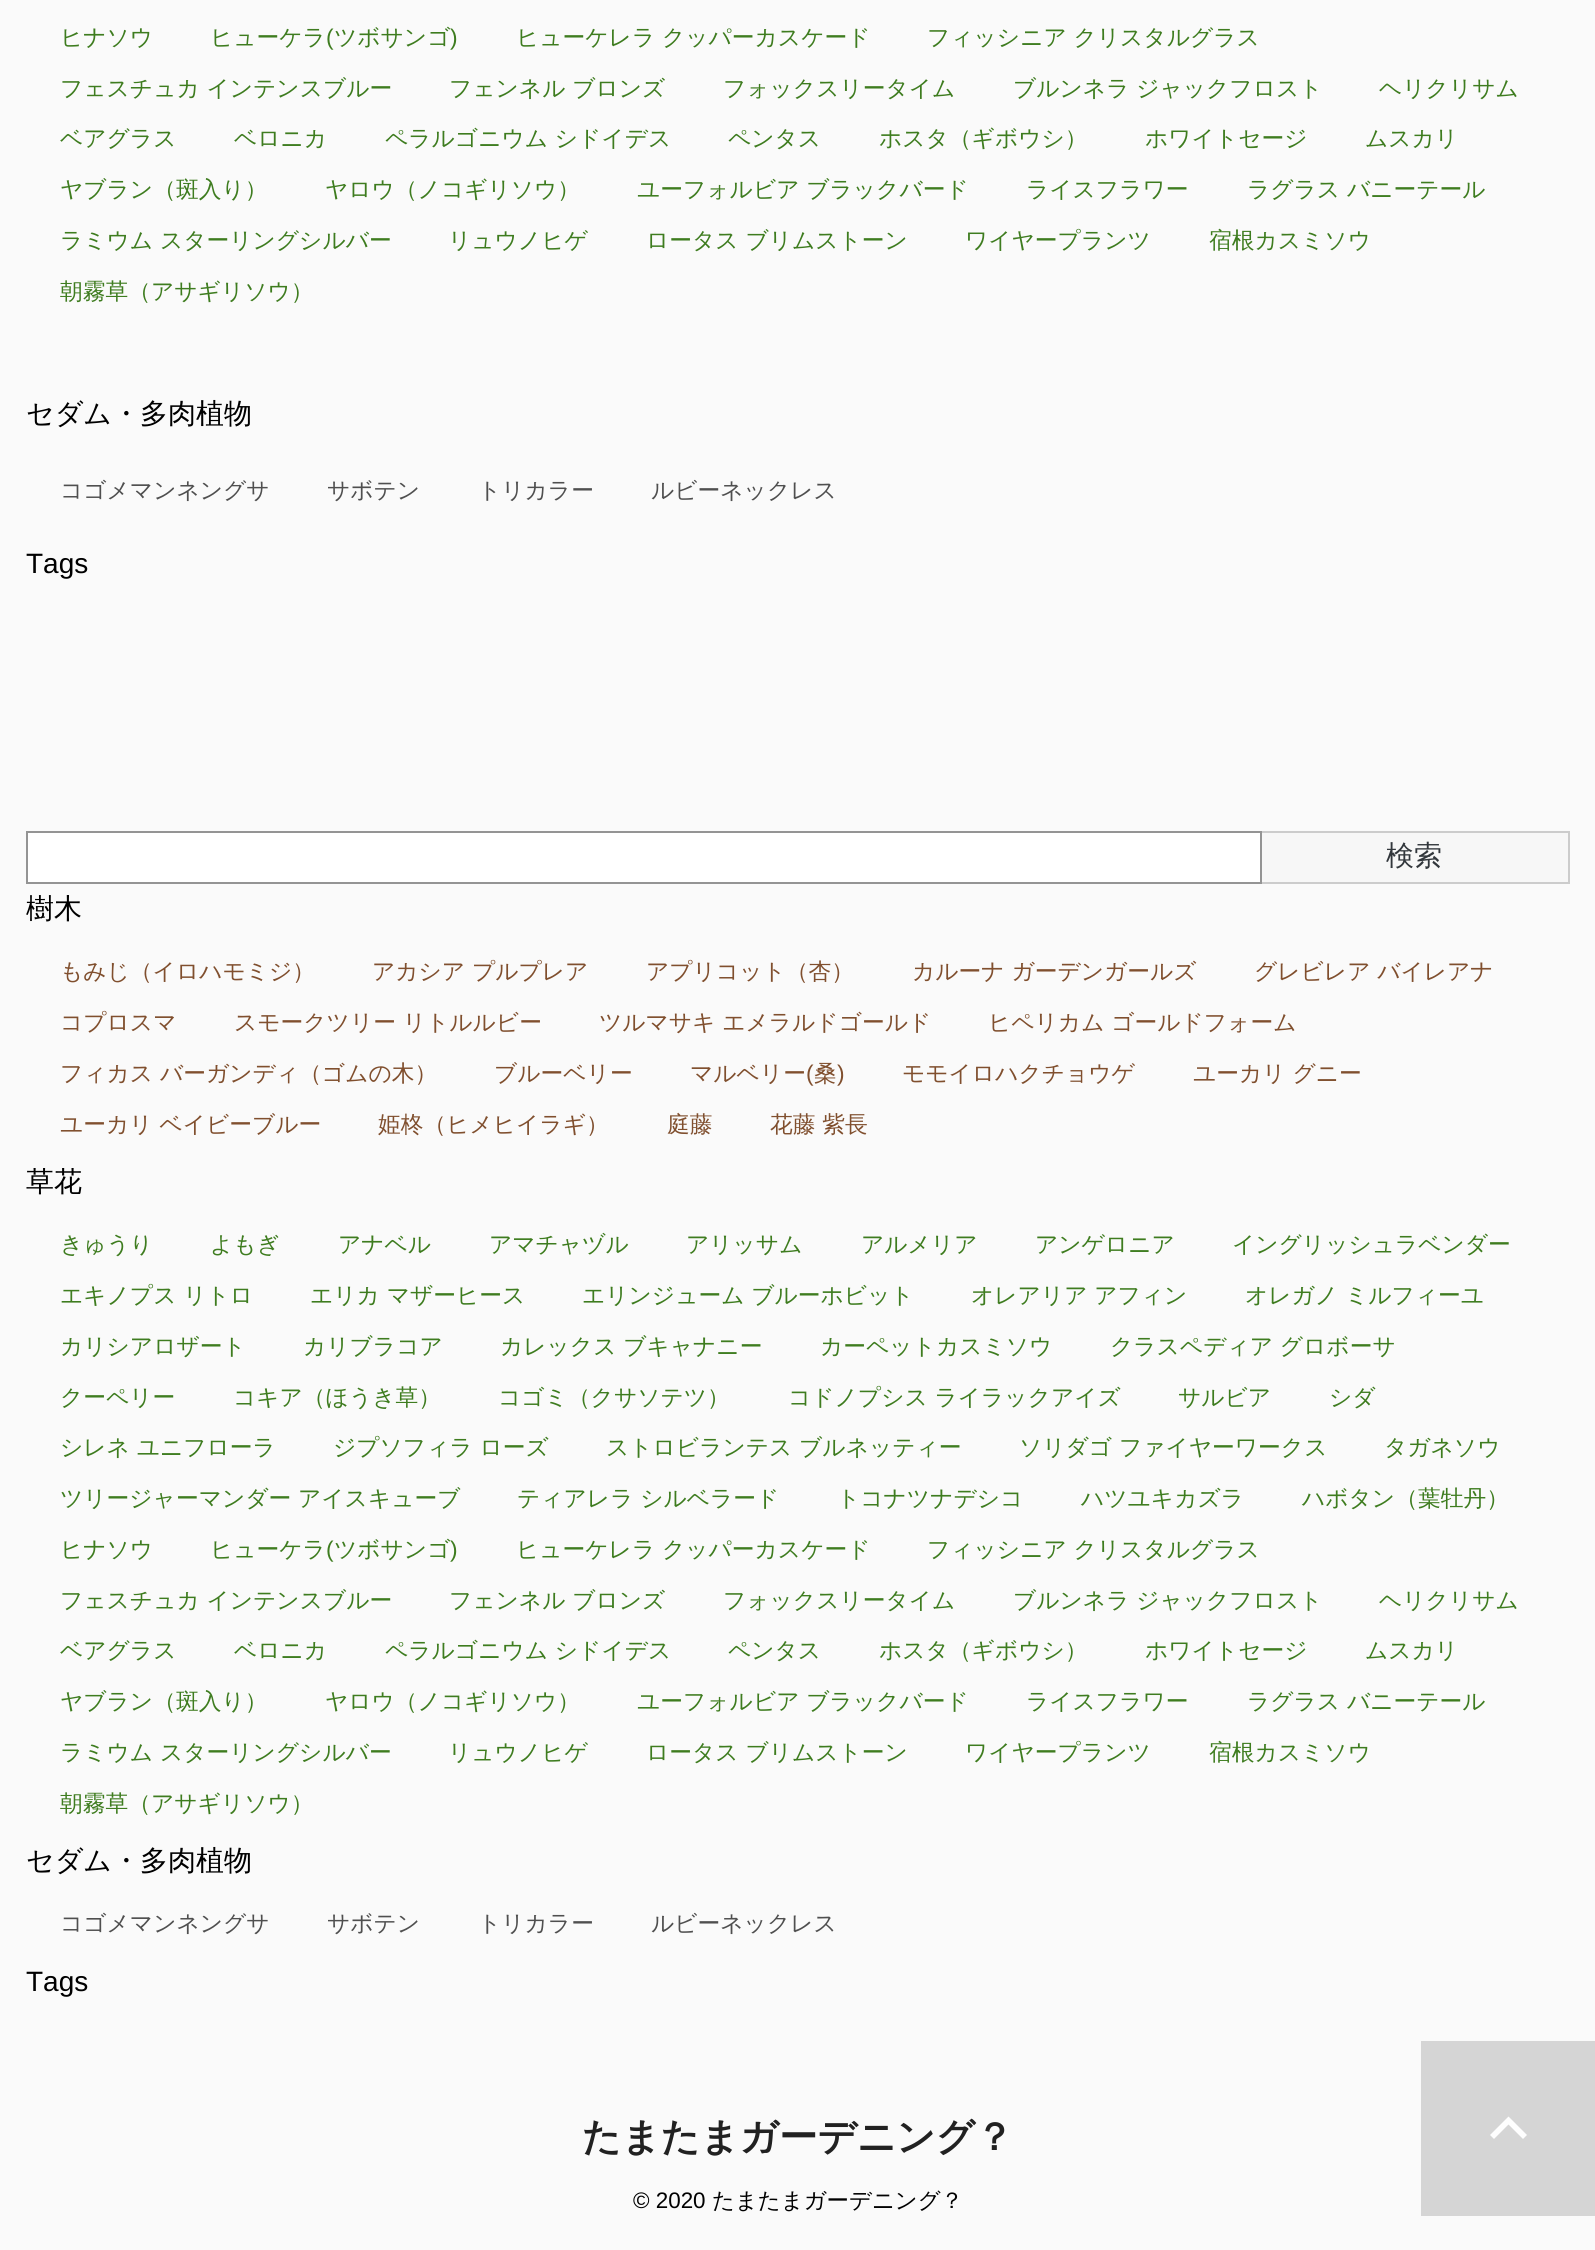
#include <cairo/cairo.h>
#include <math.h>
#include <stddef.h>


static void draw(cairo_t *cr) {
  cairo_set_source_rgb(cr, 250 / 255.0, 250 / 255.0, 250 / 255.0);
  cairo_paint(cr);
  cairo_set_source_rgb(cr, 1, 1, 1);
  cairo_rectangle(cr, 27, 832, 1234, 51);
  cairo_fill_preserve(cr);
  cairo_set_source_rgb(cr, 148 / 255.0, 148 / 255.0, 148 / 255.0);
  cairo_stroke(cr);
  cairo_set_source_rgb(cr, 247 / 255.0, 247 / 255.0, 247 / 255.0);
  cairo_rectangle(cr, 1262, 833, 306, 49);
  cairo_fill(cr);
  cairo_set_source_rgb(cr, 204 / 255.0, 204 / 255.0, 204 / 255.0);
  cairo_rectangle(cr, 1262, 831, 308, 2);
  cairo_fill(cr);
  cairo_rectangle(cr, 1568, 831, 2, 53);
  cairo_fill(cr);
  cairo_rectangle(cr, 1262, 882, 308, 2);
  cairo_fill(cr);
  cairo_set_source_rgb(cr, 213 / 255.0, 213 / 255.0, 213 / 255.0);
  cairo_rectangle(cr, 1421, 2041, 174, 175);
  cairo_fill(cr);
  cairo_set_source_rgb(cr, 254 / 255.0, 254 / 255.0, 254 / 255.0);
  cairo_new_path(cr);
  cairo_move_to(cr, 1508.5, 2124.5);
  cairo_line_to(cr, 1494, 2139);
  cairo_line_to(cr, 1490, 2135);
  cairo_line_to(cr, 1508.5, 2116.5);
  cairo_line_to(cr, 1527, 2135);
  cairo_line_to(cr, 1523, 2139);
  cairo_close_path(cr);
  cairo_fill(cr);
  cairo_select_font_face(cr, "WenQuanYi Zen Hei Medium", CAIRO_FONT_SLANT_NORMAL, CAIRO_FONT_WEIGHT_NORMAL);
  cairo_set_font_size(cr, 22.75);
  cairo_set_source_rgb(cr, 62 / 255.0, 124 / 255.0, 31 / 255.0);
  cairo_move_to(cr, 60, 45);
  cairo_show_text(cr, "ヒナソウ");
  cairo_move_to(cr, 210, 45);
  cairo_show_text(cr, "ヒューケラ");
  cairo_select_font_face(cr, "Liberation Sans", CAIRO_FONT_SLANT_NORMAL, CAIRO_FONT_WEIGHT_NORMAL);
  cairo_move_to(cr, 326, 45);
  cairo_show_text(cr, "(");
  cairo_select_font_face(cr, "WenQuanYi Zen Hei Medium", CAIRO_FONT_SLANT_NORMAL, CAIRO_FONT_WEIGHT_NORMAL);
  cairo_move_to(cr, 334, 45);
  cairo_show_text(cr, "ツボサンゴ");
  cairo_select_font_face(cr, "Liberation Sans", CAIRO_FONT_SLANT_NORMAL, CAIRO_FONT_WEIGHT_NORMAL);
  cairo_move_to(cr, 450, 45);
  cairo_show_text(cr, ")");
  cairo_select_font_face(cr, "WenQuanYi Zen Hei Medium", CAIRO_FONT_SLANT_NORMAL, CAIRO_FONT_WEIGHT_NORMAL);
  cairo_move_to(cr, 516, 45);
  cairo_show_text(cr, "ヒューケレラ クッパーカスケード");
  cairo_move_to(cr, 927, 45);
  cairo_show_text(cr, "フィッシニア クリスタルグラス");
  cairo_move_to(cr, 60, 96);
  cairo_show_text(cr, "フェスチュカ インテンスブルー");
  cairo_move_to(cr, 449, 96);
  cairo_show_text(cr, "フェンネル ブロンズ");
  cairo_move_to(cr, 723, 96);
  cairo_show_text(cr, "フォックスリータイム");
  cairo_move_to(cr, 1013, 96);
  cairo_show_text(cr, "ブルンネラ ジャックフロスト");
  cairo_move_to(cr, 1379, 96);
  cairo_show_text(cr, "ヘリクリサム");
  cairo_move_to(cr, 60, 146);
  cairo_show_text(cr, "ベアグラス");
  cairo_move_to(cr, 234, 146);
  cairo_show_text(cr, "ベロニカ");
  cairo_move_to(cr, 385, 146);
  cairo_show_text(cr, "ペラルゴニウム シドイデス");
  cairo_move_to(cr, 728, 146);
  cairo_show_text(cr, "ペンタス");
  cairo_move_to(cr, 879, 146);
  cairo_show_text(cr, "ホスタ（ギボウシ）");
  cairo_move_to(cr, 1145, 146);
  cairo_show_text(cr, "ホワイトセージ");
  cairo_move_to(cr, 1365, 146);
  cairo_show_text(cr, "ムスカリ");
  cairo_move_to(cr, 60, 197);
  cairo_show_text(cr, "ヤブラン（斑入り）");
  cairo_move_to(cr, 325, 197);
  cairo_show_text(cr, "ヤロウ（ノコギリソウ）");
  cairo_move_to(cr, 637, 197);
  cairo_show_text(cr, "ユーフォルビア ブラックバード");
  cairo_move_to(cr, 1026, 197);
  cairo_show_text(cr, "ライスフラワー");
  cairo_move_to(cr, 1247, 197);
  cairo_show_text(cr, "ラグラス バニーテール");
  cairo_move_to(cr, 60, 248);
  cairo_show_text(cr, "ラミウム スターリングシルバー");
  cairo_move_to(cr, 448, 248);
  cairo_show_text(cr, "リュウノヒゲ");
  cairo_move_to(cr, 646, 248);
  cairo_show_text(cr, "ロータス ブリムストーン");
  cairo_move_to(cr, 965, 248);
  cairo_show_text(cr, "ワイヤープランツ");
  cairo_move_to(cr, 1209, 248);
  cairo_show_text(cr, "宿根カスミソウ");
  cairo_move_to(cr, 60, 299);
  cairo_show_text(cr, "朝霧草（アサギリソウ）");
  cairo_set_font_size(cr, 28);
  cairo_set_source_rgb(cr, 0, 0, 0);
  cairo_move_to(cr, 26, 423);
  cairo_show_text(cr, "セダム・多肉植物");
  cairo_set_font_size(cr, 22.75);
  cairo_set_source_rgb(cr, 79 / 255.0, 79 / 255.0, 79 / 255.0);
  cairo_move_to(cr, 60, 498);
  cairo_show_text(cr, "コゴメマンネングサ");
  cairo_move_to(cr, 327, 498);
  cairo_show_text(cr, "サボテン");
  cairo_move_to(cr, 478, 498);
  cairo_show_text(cr, "トリカラー");
  cairo_move_to(cr, 651, 498);
  cairo_show_text(cr, "ルビーネックレス");
  cairo_select_font_face(cr, "Liberation Sans", CAIRO_FONT_SLANT_NORMAL, CAIRO_FONT_WEIGHT_NORMAL);
  cairo_set_font_size(cr, 28);
  cairo_set_source_rgb(cr, 0, 0, 0);
  cairo_move_to(cr, 26, 573);
  cairo_show_text(cr, "Tags");
  cairo_select_font_face(cr, "WenQuanYi Zen Hei Medium", CAIRO_FONT_SLANT_NORMAL, CAIRO_FONT_WEIGHT_NORMAL);
  cairo_set_source_rgb(cr, 50 / 255.0, 55 / 255.0, 60 / 255.0);
  cairo_move_to(cr, 1386, 865);
  cairo_show_text(cr, "検索");
  cairo_set_source_rgb(cr, 0, 0, 0);
  cairo_move_to(cr, 26, 918);
  cairo_show_text(cr, "樹木");
  cairo_set_font_size(cr, 22.75);
  cairo_set_source_rgb(cr, 128 / 255.0, 79 / 255.0, 46 / 255.0);
  cairo_move_to(cr, 60, 979);
  cairo_show_text(cr, "もみじ（イロハモミジ）");
  cairo_move_to(cr, 372, 979);
  cairo_show_text(cr, "アカシア プルプレア");
  cairo_move_to(cr, 646, 979);
  cairo_show_text(cr, "アプリコット（杏）");
  cairo_move_to(cr, 912, 979);
  cairo_show_text(cr, "カルーナ ガーデンガールズ");
  cairo_move_to(cr, 1254, 979);
  cairo_show_text(cr, "グレビレア バイレアナ");
  cairo_move_to(cr, 60, 1030);
  cairo_show_text(cr, "コプロスマ");
  cairo_move_to(cr, 234, 1030);
  cairo_show_text(cr, "スモークツリー リトルルビー");
  cairo_move_to(cr, 599, 1030);
  cairo_show_text(cr, "ツルマサキ エメラルドゴールド");
  cairo_move_to(cr, 988, 1030);
  cairo_show_text(cr, "ヒペリカム ゴールドフォーム");
  cairo_move_to(cr, 60, 1081);
  cairo_show_text(cr, "フィカス バーガンディ（ゴムの木）");
  cairo_move_to(cr, 494, 1081);
  cairo_show_text(cr, "ブルーベリー");
  cairo_move_to(cr, 690, 1081);
  cairo_show_text(cr, "マルベリー");
  cairo_select_font_face(cr, "Liberation Sans", CAIRO_FONT_SLANT_NORMAL, CAIRO_FONT_WEIGHT_NORMAL);
  cairo_move_to(cr, 806, 1081);
  cairo_show_text(cr, "(");
  cairo_select_font_face(cr, "WenQuanYi Zen Hei Medium", CAIRO_FONT_SLANT_NORMAL, CAIRO_FONT_WEIGHT_NORMAL);
  cairo_move_to(cr, 814, 1081);
  cairo_show_text(cr, "桑");
  cairo_select_font_face(cr, "Liberation Sans", CAIRO_FONT_SLANT_NORMAL, CAIRO_FONT_WEIGHT_NORMAL);
  cairo_move_to(cr, 837, 1081);
  cairo_show_text(cr, ")");
  cairo_select_font_face(cr, "WenQuanYi Zen Hei Medium", CAIRO_FONT_SLANT_NORMAL, CAIRO_FONT_WEIGHT_NORMAL);
  cairo_move_to(cr, 902, 1081);
  cairo_show_text(cr, "モモイロハクチョウゲ");
  cairo_move_to(cr, 1193, 1081);
  cairo_show_text(cr, "ユーカリ グニー");
  cairo_move_to(cr, 60, 1132);
  cairo_show_text(cr, "ユーカリ ベイビーブルー");
  cairo_move_to(cr, 378, 1132);
  cairo_show_text(cr, "姫柊（ヒメヒイラギ）");
  cairo_move_to(cr, 667, 1132);
  cairo_show_text(cr, "庭藤");
  cairo_move_to(cr, 770, 1132);
  cairo_show_text(cr, "花藤 紫長");
  cairo_set_font_size(cr, 28);
  cairo_set_source_rgb(cr, 0, 0, 0);
  cairo_move_to(cr, 26, 1191);
  cairo_show_text(cr, "草花");
  cairo_set_font_size(cr, 22.75);
  cairo_set_source_rgb(cr, 62 / 255.0, 124 / 255.0, 31 / 255.0);
  cairo_move_to(cr, 60, 1252);
  cairo_show_text(cr, "きゅうり");
  cairo_move_to(cr, 210, 1252);
  cairo_show_text(cr, "よもぎ");
  cairo_move_to(cr, 338, 1252);
  cairo_show_text(cr, "アナベル");
  cairo_move_to(cr, 489, 1252);
  cairo_show_text(cr, "アマチャヅル");
  cairo_move_to(cr, 686, 1252);
  cairo_show_text(cr, "アリッサム");
  cairo_move_to(cr, 861, 1252);
  cairo_show_text(cr, "アルメリア");
  cairo_move_to(cr, 1035, 1252);
  cairo_show_text(cr, "アンゲロニア");
  cairo_move_to(cr, 1232, 1252);
  cairo_show_text(cr, "イングリッシュラベンダー");
  cairo_move_to(cr, 60, 1303);
  cairo_show_text(cr, "エキノプス リトロ");
  cairo_move_to(cr, 310, 1303);
  cairo_show_text(cr, "エリカ マザーヒース");
  cairo_move_to(cr, 582, 1303);
  cairo_show_text(cr, "エリンジューム ブルーホビット");
  cairo_move_to(cr, 971, 1303);
  cairo_show_text(cr, "オレアリア アフィン");
  cairo_move_to(cr, 1245, 1303);
  cairo_show_text(cr, "オレガノ ミルフィーユ");
  cairo_move_to(cr, 60, 1354);
  cairo_show_text(cr, "カリシアロザート");
  cairo_move_to(cr, 303, 1354);
  cairo_show_text(cr, "カリブラコア");
  cairo_move_to(cr, 500, 1354);
  cairo_show_text(cr, "カレックス ブキャナニー");
  cairo_move_to(cr, 820, 1354);
  cairo_show_text(cr, "カーペットカスミソウ");
  cairo_move_to(cr, 1110, 1354);
  cairo_show_text(cr, "クラスペディア グロボーサ");
  cairo_move_to(cr, 60, 1405);
  cairo_show_text(cr, "クーペリー");
  cairo_move_to(cr, 233, 1405);
  cairo_show_text(cr, "コキア（ほうき草）");
  cairo_move_to(cr, 498, 1405);
  cairo_show_text(cr, "コゴミ（クサソテツ）");
  cairo_move_to(cr, 788, 1405);
  cairo_show_text(cr, "コドノプシス ライラックアイズ");
  cairo_move_to(cr, 1178, 1405);
  cairo_show_text(cr, "サルビア");
  cairo_move_to(cr, 1329, 1405);
  cairo_show_text(cr, "シダ");
  cairo_move_to(cr, 60, 1455);
  cairo_show_text(cr, "シレネ ユニフローラ");
  cairo_move_to(cr, 333, 1455);
  cairo_show_text(cr, "ジプソフィラ ローズ");
  cairo_move_to(cr, 606, 1455);
  cairo_show_text(cr, "ストロビランテス ブルネッティー");
  cairo_move_to(cr, 1019, 1455);
  cairo_show_text(cr, "ソリダゴ ファイヤーワークス");
  cairo_move_to(cr, 1384, 1455);
  cairo_show_text(cr, "タガネソウ");
  cairo_move_to(cr, 60, 1506);
  cairo_show_text(cr, "ツリージャーマンダー アイスキューブ");
  cairo_move_to(cr, 517, 1506);
  cairo_show_text(cr, "ティアレラ シルベラード");
  cairo_move_to(cr, 837, 1506);
  cairo_show_text(cr, "トコナツナデシコ");
  cairo_move_to(cr, 1081, 1506);
  cairo_show_text(cr, "ハツユキカズラ");
  cairo_move_to(cr, 1302, 1506);
  cairo_show_text(cr, "ハボタン（葉牡丹）");
  cairo_move_to(cr, 60, 1557);
  cairo_show_text(cr, "ヒナソウ");
  cairo_move_to(cr, 210, 1557);
  cairo_show_text(cr, "ヒューケラ");
  cairo_select_font_face(cr, "Liberation Sans", CAIRO_FONT_SLANT_NORMAL, CAIRO_FONT_WEIGHT_NORMAL);
  cairo_move_to(cr, 326, 1557);
  cairo_show_text(cr, "(");
  cairo_select_font_face(cr, "WenQuanYi Zen Hei Medium", CAIRO_FONT_SLANT_NORMAL, CAIRO_FONT_WEIGHT_NORMAL);
  cairo_move_to(cr, 334, 1557);
  cairo_show_text(cr, "ツボサンゴ");
  cairo_select_font_face(cr, "Liberation Sans", CAIRO_FONT_SLANT_NORMAL, CAIRO_FONT_WEIGHT_NORMAL);
  cairo_move_to(cr, 450, 1557);
  cairo_show_text(cr, ")");
  cairo_select_font_face(cr, "WenQuanYi Zen Hei Medium", CAIRO_FONT_SLANT_NORMAL, CAIRO_FONT_WEIGHT_NORMAL);
  cairo_move_to(cr, 516, 1557);
  cairo_show_text(cr, "ヒューケレラ クッパーカスケード");
  cairo_move_to(cr, 927, 1557);
  cairo_show_text(cr, "フィッシニア クリスタルグラス");
  cairo_move_to(cr, 60, 1608);
  cairo_show_text(cr, "フェスチュカ インテンスブルー");
  cairo_move_to(cr, 449, 1608);
  cairo_show_text(cr, "フェンネル ブロンズ");
  cairo_move_to(cr, 723, 1608);
  cairo_show_text(cr, "フォックスリータイム");
  cairo_move_to(cr, 1013, 1608);
  cairo_show_text(cr, "ブルンネラ ジャックフロスト");
  cairo_move_to(cr, 1379, 1608);
  cairo_show_text(cr, "ヘリクリサム");
  cairo_move_to(cr, 60, 1658);
  cairo_show_text(cr, "ベアグラス");
  cairo_move_to(cr, 234, 1658);
  cairo_show_text(cr, "ベロニカ");
  cairo_move_to(cr, 385, 1658);
  cairo_show_text(cr, "ペラルゴニウム シドイデス");
  cairo_move_to(cr, 728, 1658);
  cairo_show_text(cr, "ペンタス");
  cairo_move_to(cr, 879, 1658);
  cairo_show_text(cr, "ホスタ（ギボウシ）");
  cairo_move_to(cr, 1145, 1658);
  cairo_show_text(cr, "ホワイトセージ");
  cairo_move_to(cr, 1365, 1658);
  cairo_show_text(cr, "ムスカリ");
  cairo_move_to(cr, 60, 1709);
  cairo_show_text(cr, "ヤブラン（斑入り）");
  cairo_move_to(cr, 325, 1709);
  cairo_show_text(cr, "ヤロウ（ノコギリソウ）");
  cairo_move_to(cr, 637, 1709);
  cairo_show_text(cr, "ユーフォルビア ブラックバード");
  cairo_move_to(cr, 1026, 1709);
  cairo_show_text(cr, "ライスフラワー");
  cairo_move_to(cr, 1247, 1709);
  cairo_show_text(cr, "ラグラス バニーテール");
  cairo_move_to(cr, 60, 1760);
  cairo_show_text(cr, "ラミウム スターリングシルバー");
  cairo_move_to(cr, 448, 1760);
  cairo_show_text(cr, "リュウノヒゲ");
  cairo_move_to(cr, 646, 1760);
  cairo_show_text(cr, "ロータス ブリムストーン");
  cairo_move_to(cr, 965, 1760);
  cairo_show_text(cr, "ワイヤープランツ");
  cairo_move_to(cr, 1209, 1760);
  cairo_show_text(cr, "宿根カスミソウ");
  cairo_move_to(cr, 60, 1811);
  cairo_show_text(cr, "朝霧草（アサギリソウ）");
  cairo_set_font_size(cr, 28);
  cairo_set_source_rgb(cr, 0, 0, 0);
  cairo_move_to(cr, 26, 1870);
  cairo_show_text(cr, "セダム・多肉植物");
  cairo_set_font_size(cr, 22.75);
  cairo_set_source_rgb(cr, 79 / 255.0, 79 / 255.0, 79 / 255.0);
  cairo_move_to(cr, 60, 1931);
  cairo_show_text(cr, "コゴメマンネングサ");
  cairo_move_to(cr, 327, 1931);
  cairo_show_text(cr, "サボテン");
  cairo_move_to(cr, 478, 1931);
  cairo_show_text(cr, "トリカラー");
  cairo_move_to(cr, 651, 1931);
  cairo_show_text(cr, "ルビーネックレス");
  cairo_select_font_face(cr, "Liberation Sans", CAIRO_FONT_SLANT_NORMAL, CAIRO_FONT_WEIGHT_NORMAL);
  cairo_set_font_size(cr, 28);
  cairo_set_source_rgb(cr, 0, 0, 0);
  cairo_move_to(cr, 26, 1991);
  cairo_show_text(cr, "Tags");
  cairo_select_font_face(cr, "WenQuanYi Zen Hei", CAIRO_FONT_SLANT_NORMAL, CAIRO_FONT_WEIGHT_BOLD);
  cairo_set_font_size(cr, 38.5);
  cairo_set_source_rgb(cr, 33 / 255.0, 33 / 255.0, 33 / 255.0);
  cairo_move_to(cr, 582, 2150);
  cairo_show_text(cr, "たまたまガーデニング？");
  cairo_select_font_face(cr, "Liberation Sans", CAIRO_FONT_SLANT_NORMAL, CAIRO_FONT_WEIGHT_NORMAL);
  cairo_set_font_size(cr, 22.4);
  cairo_set_source_rgb(cr, 0, 0, 0);
  cairo_move_to(cr, 633, 2208);
  cairo_show_text(cr, "© 2020");
  cairo_select_font_face(cr, "WenQuanYi Zen Hei Medium", CAIRO_FONT_SLANT_NORMAL, CAIRO_FONT_WEIGHT_NORMAL);
  cairo_move_to(cr, 712, 2208);
  cairo_show_text(cr, "たまたまガーデニング？");
}

int main(void) {
  cairo_surface_t *surface = cairo_image_surface_create(CAIRO_FORMAT_RGB24, 1595, 2250);
  cairo_t *cr = cairo_create(surface);
  cairo_font_options_t *options = cairo_font_options_create();
  cairo_font_options_set_hint_metrics(options, CAIRO_HINT_METRICS_OFF);
  cairo_font_options_set_hint_style(options, CAIRO_HINT_STYLE_NONE);
  cairo_set_font_options(cr, options);
  cairo_set_miter_limit(cr, 4);
  draw(cr);
  cairo_surface_write_to_png(surface, "out.png");
  cairo_font_options_destroy(options);
  cairo_destroy(cr);
  cairo_surface_destroy(surface);
  return 0;
}
